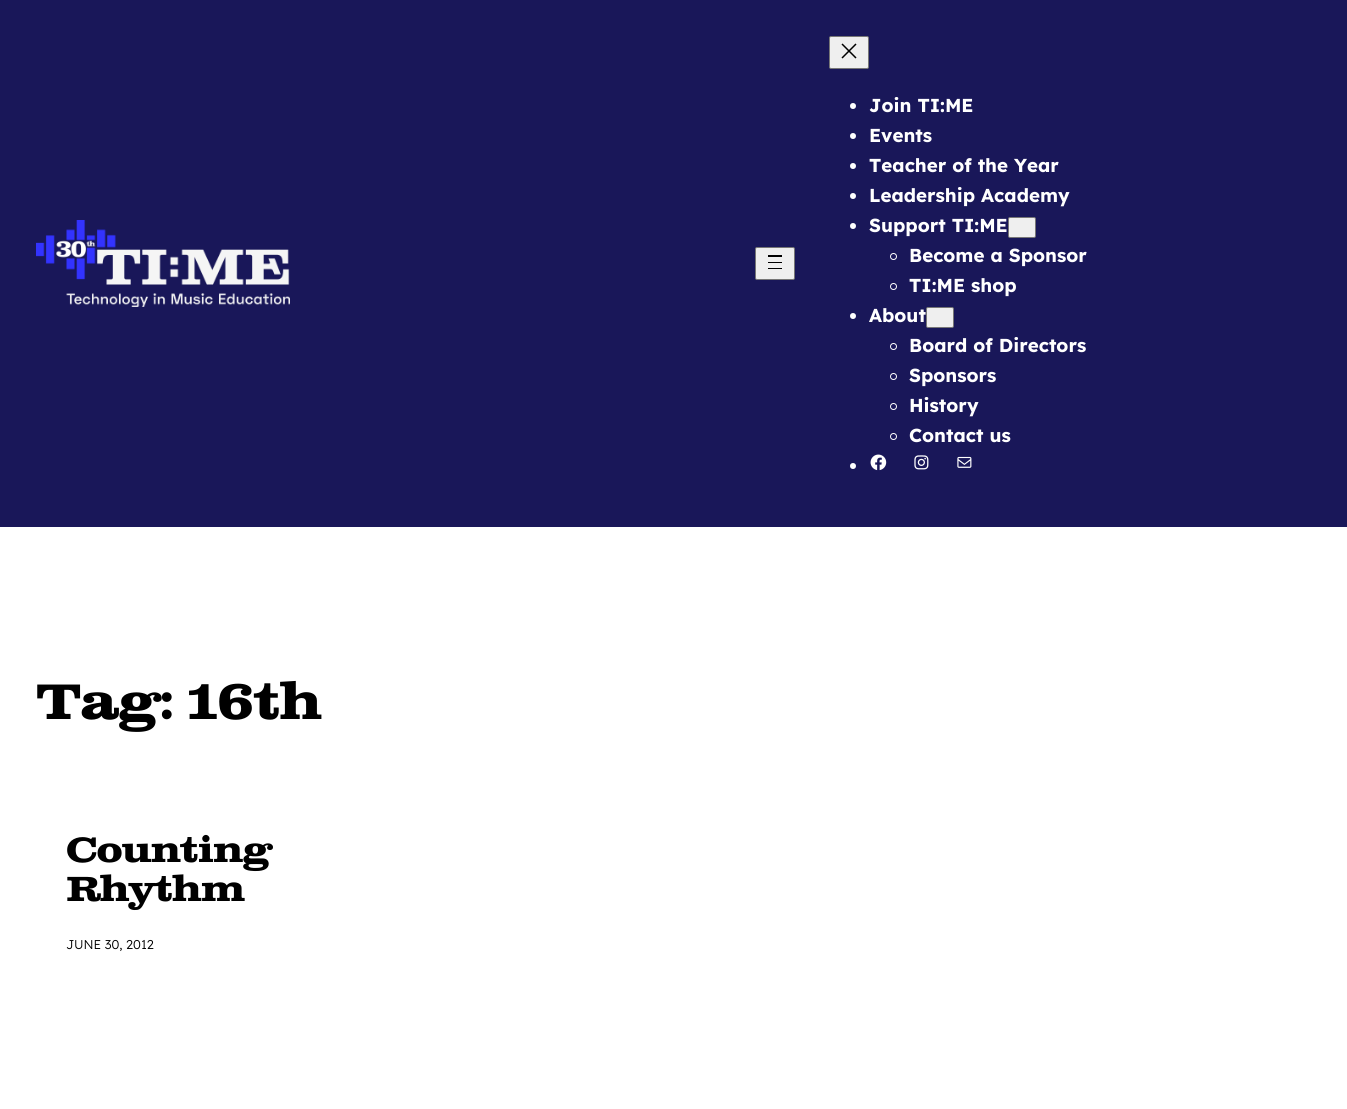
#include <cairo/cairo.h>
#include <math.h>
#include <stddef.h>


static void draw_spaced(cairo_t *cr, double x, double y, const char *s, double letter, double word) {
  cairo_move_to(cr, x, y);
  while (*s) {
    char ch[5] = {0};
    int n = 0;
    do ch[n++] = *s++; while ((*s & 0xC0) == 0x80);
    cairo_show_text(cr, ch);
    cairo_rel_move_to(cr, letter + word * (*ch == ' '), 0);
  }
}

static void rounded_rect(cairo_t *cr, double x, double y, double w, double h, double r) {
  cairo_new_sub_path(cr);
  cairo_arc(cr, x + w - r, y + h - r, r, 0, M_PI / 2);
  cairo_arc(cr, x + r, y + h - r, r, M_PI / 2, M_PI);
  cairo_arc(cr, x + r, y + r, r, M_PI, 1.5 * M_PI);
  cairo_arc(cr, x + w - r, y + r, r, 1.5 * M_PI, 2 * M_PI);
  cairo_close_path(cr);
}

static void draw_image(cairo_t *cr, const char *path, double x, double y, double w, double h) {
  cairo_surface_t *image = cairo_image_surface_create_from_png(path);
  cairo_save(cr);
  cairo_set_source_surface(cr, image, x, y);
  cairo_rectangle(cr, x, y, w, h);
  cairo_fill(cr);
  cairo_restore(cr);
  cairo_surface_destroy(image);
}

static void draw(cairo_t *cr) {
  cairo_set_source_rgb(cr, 1, 1, 1);
  cairo_paint(cr);
  cairo_set_source_rgb(cr, 25 / 255.0, 23 / 255.0, 89 / 255.0);
  cairo_rectangle(cr, 0, 0, 1347, 527);
  cairo_fill(cr);
  draw_image(cr, "images/1.png", 36, 220, 254, 87);
  cairo_set_source_rgb(cr, 239 / 255.0, 239 / 255.0, 239 / 255.0);
  rounded_rect(cr, 755.5, 247.5, 39, 32, 1.5);
  cairo_fill_preserve(cr);
  cairo_set_source_rgb(cr, 118 / 255.0, 118 / 255.0, 118 / 255.0);
  cairo_set_line_width(cr, 1);
  cairo_stroke(cr);
  cairo_set_source_rgb(cr, 0, 0, 0);
  cairo_rectangle(cr, 768, 255, 14, 2);
  cairo_fill(cr);
  cairo_rectangle(cr, 768, 262, 14, 1);
  cairo_fill(cr);
  cairo_rectangle(cr, 768, 268, 14, 1);
  cairo_fill(cr);
  cairo_set_source_rgb(cr, 239 / 255.0, 239 / 255.0, 239 / 255.0);
  rounded_rect(cr, 829.5, 36.5, 39, 32, 1.5);
  cairo_fill_preserve(cr);
  cairo_set_source_rgb(cr, 118 / 255.0, 118 / 255.0, 118 / 255.0);
  cairo_stroke(cr);
  draw_image(cr, "images/2.png", 841, 43, 16, 16);
  cairo_set_source_rgb(cr, 1, 1, 1);
  cairo_arc(cr, 853, 106, 3, 0, 2 * M_PI);
  cairo_fill(cr);
  cairo_arc(cr, 853, 136, 3, 0, 2 * M_PI);
  cairo_fill(cr);
  cairo_arc(cr, 853, 166, 3, 0, 2 * M_PI);
  cairo_fill(cr);
  cairo_arc(cr, 853, 196, 3, 0, 2 * M_PI);
  cairo_fill(cr);
  cairo_arc(cr, 853, 226, 3, 0, 2 * M_PI);
  cairo_fill(cr);
  cairo_set_source_rgb(cr, 239 / 255.0, 239 / 255.0, 239 / 255.0);
  rounded_rect(cr, 1008.5, 217.5, 27, 20, 1.5);
  cairo_fill_preserve(cr);
  cairo_set_source_rgb(cr, 118 / 255.0, 118 / 255.0, 118 / 255.0);
  cairo_stroke(cr);
  cairo_arc(cr, 893.5, 256.5, 3, 0, 2 * M_PI);
  cairo_set_source_rgb(cr, 1, 1, 1);
  cairo_stroke(cr);
  cairo_arc(cr, 893.5, 286.5, 3, 0, 2 * M_PI);
  cairo_stroke(cr);
  cairo_arc(cr, 853, 316, 3, 0, 2 * M_PI);
  cairo_fill(cr);
  cairo_set_source_rgb(cr, 239 / 255.0, 239 / 255.0, 239 / 255.0);
  rounded_rect(cr, 926.5, 307.5, 27, 20, 1.5);
  cairo_fill_preserve(cr);
  cairo_set_source_rgb(cr, 118 / 255.0, 118 / 255.0, 118 / 255.0);
  cairo_stroke(cr);
  cairo_arc(cr, 893.5, 346.5, 3, 0, 2 * M_PI);
  cairo_set_source_rgb(cr, 1, 1, 1);
  cairo_stroke(cr);
  cairo_arc(cr, 893.5, 376.5, 3, 0, 2 * M_PI);
  cairo_stroke(cr);
  cairo_arc(cr, 893.5, 406.5, 3, 0, 2 * M_PI);
  cairo_stroke(cr);
  cairo_arc(cr, 893.5, 436.5, 3, 0, 2 * M_PI);
  cairo_stroke(cr);
  cairo_arc(cr, 853, 466, 3, 0, 2 * M_PI);
  cairo_fill(cr);
  draw_image(cr, "images/3.png", 870, 454, 17, 17);
  draw_image(cr, "images/4.png", 914, 455, 15, 15);
  draw_image(cr, "images/5.png", 957, 456, 15, 12);
  cairo_select_font_face(cr, "Lexend", CAIRO_FONT_SLANT_NORMAL, CAIRO_FONT_WEIGHT_BOLD);
  cairo_set_font_size(cr, 18.75);
  cairo_move_to(cr, 869, 112);
  cairo_show_text(cr, "Join TI:ME");
  cairo_move_to(cr, 869, 142);
  cairo_show_text(cr, "Events");
  cairo_move_to(cr, 869, 172);
  cairo_show_text(cr, "Teacher of the Year");
  cairo_move_to(cr, 869, 202);
  cairo_show_text(cr, "Leadership Academy");
  cairo_move_to(cr, 869, 232);
  cairo_show_text(cr, "Support TI:ME");
  cairo_move_to(cr, 909, 262);
  cairo_show_text(cr, "Become a Sponsor");
  cairo_move_to(cr, 909, 292);
  cairo_show_text(cr, "TI:ME shop");
  cairo_move_to(cr, 869, 322);
  cairo_show_text(cr, "About");
  cairo_move_to(cr, 909, 352);
  cairo_show_text(cr, "Board of Directors");
  cairo_move_to(cr, 909, 382);
  cairo_show_text(cr, "Sponsors");
  cairo_move_to(cr, 909, 412);
  cairo_show_text(cr, "History");
  cairo_move_to(cr, 909, 442);
  cairo_show_text(cr, "Contact us");
  cairo_select_font_face(cr, "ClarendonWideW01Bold", CAIRO_FONT_SLANT_NORMAL, CAIRO_FONT_WEIGHT_BOLD);
  cairo_set_font_size(cr, 50);
  cairo_set_source_rgb(cr, 0, 0, 0);
  draw_spaced(cr, 36, 719, "Tag: 16th", -1, 0);
  cairo_set_font_size(cr, 35);
  draw_spaced(cr, 66, 862, "Counting", -1, 0);
  draw_spaced(cr, 66, 901, "Rhythm", -1, 0);
  cairo_select_font_face(cr, "Lexend Light", CAIRO_FONT_SLANT_NORMAL, CAIRO_FONT_WEIGHT_NORMAL);
  cairo_set_font_size(cr, 12.75);
  cairo_move_to(cr, 66, 949);
  cairo_show_text(cr, "JUNE 30, 2012");
}

int main(void) {
  cairo_surface_t *surface = cairo_image_surface_create(CAIRO_FORMAT_RGB24, 1347, 1109);
  cairo_t *cr = cairo_create(surface);
  cairo_font_options_t *options = cairo_font_options_create();
  cairo_font_options_set_hint_metrics(options, CAIRO_HINT_METRICS_OFF);
  cairo_font_options_set_hint_style(options, CAIRO_HINT_STYLE_NONE);
  cairo_set_font_options(cr, options);
  cairo_set_miter_limit(cr, 4);
  draw(cr);
  cairo_surface_write_to_png(surface, "out.png");
  cairo_font_options_destroy(options);
  cairo_destroy(cr);
  cairo_surface_destroy(surface);
  return 0;
}
